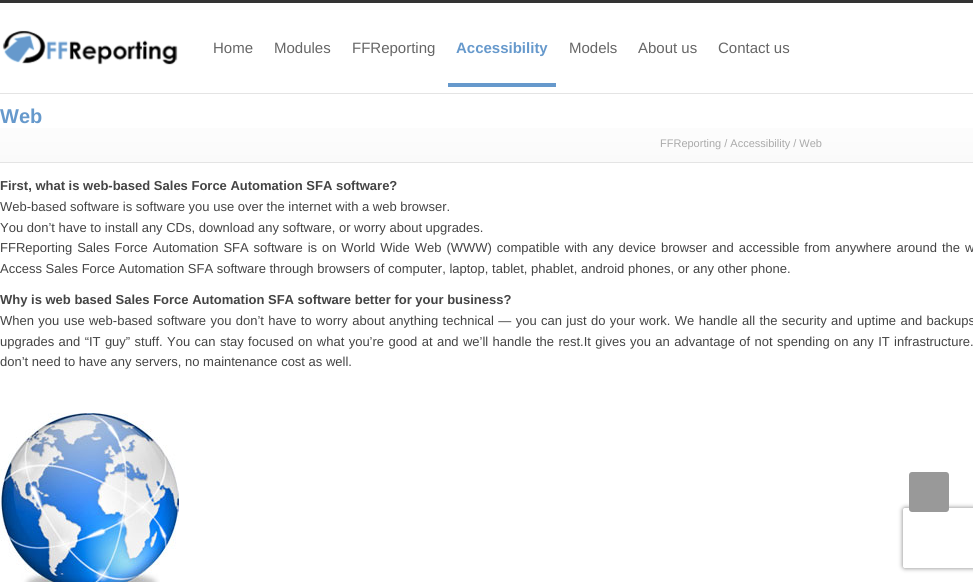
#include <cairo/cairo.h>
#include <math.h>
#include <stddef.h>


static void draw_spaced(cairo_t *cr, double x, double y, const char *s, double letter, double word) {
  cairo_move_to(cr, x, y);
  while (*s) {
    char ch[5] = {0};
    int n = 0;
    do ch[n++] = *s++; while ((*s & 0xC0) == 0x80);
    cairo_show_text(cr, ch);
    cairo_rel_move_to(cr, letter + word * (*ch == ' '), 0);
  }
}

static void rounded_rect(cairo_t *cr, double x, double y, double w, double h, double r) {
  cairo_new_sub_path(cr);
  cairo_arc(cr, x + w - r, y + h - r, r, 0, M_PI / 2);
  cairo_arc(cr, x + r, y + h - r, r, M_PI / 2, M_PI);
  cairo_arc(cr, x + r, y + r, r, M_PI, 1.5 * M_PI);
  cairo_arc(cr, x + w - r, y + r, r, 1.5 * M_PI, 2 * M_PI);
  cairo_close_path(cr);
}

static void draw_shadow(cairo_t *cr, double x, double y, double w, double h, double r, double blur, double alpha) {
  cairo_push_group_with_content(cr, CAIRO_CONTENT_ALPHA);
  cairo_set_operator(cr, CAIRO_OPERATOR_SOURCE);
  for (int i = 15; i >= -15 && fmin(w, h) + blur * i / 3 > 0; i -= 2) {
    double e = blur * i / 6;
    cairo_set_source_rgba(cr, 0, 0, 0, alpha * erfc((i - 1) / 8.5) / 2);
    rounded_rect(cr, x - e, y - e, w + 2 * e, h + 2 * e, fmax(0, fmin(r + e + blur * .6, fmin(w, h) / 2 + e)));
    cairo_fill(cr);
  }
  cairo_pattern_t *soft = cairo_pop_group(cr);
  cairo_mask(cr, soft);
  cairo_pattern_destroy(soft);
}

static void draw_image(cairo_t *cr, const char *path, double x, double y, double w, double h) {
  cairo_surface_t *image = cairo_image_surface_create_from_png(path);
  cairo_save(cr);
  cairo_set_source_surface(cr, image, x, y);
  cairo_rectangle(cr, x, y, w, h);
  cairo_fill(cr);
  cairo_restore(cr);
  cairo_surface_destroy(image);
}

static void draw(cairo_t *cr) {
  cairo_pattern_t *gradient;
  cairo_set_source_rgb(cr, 1, 1, 1);
  cairo_paint(cr);
  cairo_set_source_rgb(cr, 51 / 255.0, 51 / 255.0, 51 / 255.0);
  cairo_rectangle(cr, 0, 0, 973, 3);
  cairo_fill(cr);
  draw_image(cr, "images/1.png", 2, 30, 176, 35);
  cairo_set_source_rgb(cr, 102 / 255.0, 153 / 255.0, 204 / 255.0);
  cairo_rectangle(cr, 448, 83, 108, 4);
  cairo_fill(cr);
  gradient = cairo_pattern_create_linear(487, 162, 487, 94);
  cairo_pattern_add_color_stop_rgba(gradient, 0, 250 / 255.0, 250 / 255.0, 250 / 255.0, 1);
  cairo_pattern_add_color_stop_rgba(gradient, 1, 1, 1, 1, 1);
  cairo_set_source(cr, gradient);
  cairo_pattern_destroy(gradient);
  cairo_rectangle(cr, 0, 128, 973, 34);
  cairo_fill(cr);
  cairo_set_source_rgb(cr, 228 / 255.0, 228 / 255.0, 228 / 255.0);
  cairo_rectangle(cr, 0, 93, 973, 1);
  cairo_fill(cr);
  cairo_rectangle(cr, 0, 162, 973, 1);
  cairo_fill(cr);
  draw_image(cr, "images/2.png", 0, 413, 179, 169);
  cairo_save(cr);
  cairo_set_fill_rule(cr, CAIRO_FILL_RULE_EVEN_ODD);
  cairo_new_path(cr);
  cairo_move_to(cr, 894, 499);
  cairo_line_to(cr, 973, 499);
  cairo_line_to(cr, 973, 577);
  cairo_line_to(cr, 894, 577);
  cairo_close_path(cr);
  cairo_move_to(cr, 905, 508);
  cairo_line_to(cr, 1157, 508);
  cairo_curve_to(cr, 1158, 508, 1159, 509, 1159, 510);
  cairo_line_to(cr, 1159, 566);
  cairo_curve_to(cr, 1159, 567, 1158, 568, 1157, 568);
  cairo_line_to(cr, 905, 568);
  cairo_curve_to(cr, 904, 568, 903, 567, 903, 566);
  cairo_line_to(cr, 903, 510);
  cairo_curve_to(cr, 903, 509, 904, 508, 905, 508);
  cairo_close_path(cr);
  cairo_clip(cr);
  cairo_set_source_rgb(cr, 128 / 255.0, 128 / 255.0, 128 / 255.0);
  draw_shadow(cr, 903, 508, 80, 60, 2, 2.5, 1);
  cairo_restore(cr);
  cairo_set_source_rgb(cr, 153 / 255.0, 153 / 255.0, 153 / 255.0);
  rounded_rect(cr, 909, 472, 40, 40, 3);
  cairo_fill(cr);
  cairo_select_font_face(cr, "Liberation Sans", CAIRO_FONT_SLANT_NORMAL, CAIRO_FONT_WEIGHT_NORMAL);
  cairo_set_font_size(cr, 15);
  cairo_set_source_rgb(cr, 102 / 255.0, 102 / 255.0, 102 / 255.0);
  cairo_move_to(cr, 213, 53);
  cairo_show_text(cr, "Home");
  cairo_move_to(cr, 274, 53);
  cairo_show_text(cr, "Modules");
  cairo_move_to(cr, 352, 53);
  cairo_show_text(cr, "FFReporting");
  cairo_select_font_face(cr, "Liberation Sans", CAIRO_FONT_SLANT_NORMAL, CAIRO_FONT_WEIGHT_BOLD);
  cairo_set_source_rgb(cr, 102 / 255.0, 153 / 255.0, 204 / 255.0);
  cairo_move_to(cr, 456, 53);
  cairo_show_text(cr, "Accessibility");
  cairo_select_font_face(cr, "Liberation Sans", CAIRO_FONT_SLANT_NORMAL, CAIRO_FONT_WEIGHT_NORMAL);
  cairo_set_source_rgb(cr, 102 / 255.0, 102 / 255.0, 102 / 255.0);
  cairo_move_to(cr, 569, 53);
  cairo_show_text(cr, "Models");
  cairo_move_to(cr, 638, 53);
  cairo_show_text(cr, "About us");
  cairo_move_to(cr, 718, 53);
  cairo_show_text(cr, "Contact us");
  cairo_select_font_face(cr, "Liberation Sans", CAIRO_FONT_SLANT_NORMAL, CAIRO_FONT_WEIGHT_BOLD);
  cairo_set_font_size(cr, 20);
  cairo_set_source_rgb(cr, 102 / 255.0, 153 / 255.0, 204 / 255.0);
  cairo_move_to(cr, 0, 123);
  cairo_show_text(cr, "Web");
  cairo_select_font_face(cr, "Liberation Sans", CAIRO_FONT_SLANT_NORMAL, CAIRO_FONT_WEIGHT_NORMAL);
  cairo_set_font_size(cr, 11);
  cairo_set_source_rgb(cr, 170 / 255.0, 170 / 255.0, 170 / 255.0);
  cairo_move_to(cr, 660, 147);
  cairo_show_text(cr, "FFReporting / Accessibility / Web");
  cairo_select_font_face(cr, "Liberation Sans", CAIRO_FONT_SLANT_NORMAL, CAIRO_FONT_WEIGHT_BOLD);
  cairo_set_font_size(cr, 13);
  cairo_set_source_rgb(cr, 68 / 255.0, 68 / 255.0, 68 / 255.0);
  cairo_move_to(cr, 0, 190);
  cairo_show_text(cr, "First, what is web-based Sales Force Automation SFA software?");
  cairo_select_font_face(cr, "Liberation Sans", CAIRO_FONT_SLANT_NORMAL, CAIRO_FONT_WEIGHT_NORMAL);
  cairo_move_to(cr, 0, 211);
  cairo_show_text(cr, "Web-based software is software you use over the internet with a web browser.");
  cairo_move_to(cr, 0, 232);
  cairo_show_text(cr, "You don’t have to install any CDs, download any software, or worry about upgrades.");
  draw_spaced(cr, 0, 252, "FFReporting Sales Force Automation SFA software is on World Wide Web (WWW) compatible with any device browser and accessible from anywhere around the w", 0, 1.3);
  cairo_move_to(cr, 0, 273);
  cairo_show_text(cr, "Access Sales Force Automation SFA software through browsers of computer, laptop, tablet, phablet, android phones, or any other phone.");
  cairo_select_font_face(cr, "Liberation Sans", CAIRO_FONT_SLANT_NORMAL, CAIRO_FONT_WEIGHT_BOLD);
  cairo_move_to(cr, 0, 304);
  cairo_show_text(cr, "Why is web based Sales Force Automation SFA software better for your business?");
  cairo_select_font_face(cr, "Liberation Sans", CAIRO_FONT_SLANT_NORMAL, CAIRO_FONT_WEIGHT_NORMAL);
  draw_spaced(cr, 0, 325, "When you use web-based software you don’t have to worry about anything technical — you can just do your work. We handle all the security and uptime and backups", 0, 0.75);
  draw_spaced(cr, 0, 346, "upgrades and “IT guy” stuff. You can stay focused on what you’re good at and we’ll handle the rest.It gives you an advantage of not spending on any IT infrastructure.", 0, 0.75);
  cairo_move_to(cr, 0, 366);
  cairo_show_text(cr, "don’t need to have any servers, no maintenance cost as well.");
}

int main(void) {
  cairo_surface_t *surface = cairo_image_surface_create(CAIRO_FORMAT_RGB24, 973, 582);
  cairo_t *cr = cairo_create(surface);
  cairo_font_options_t *options = cairo_font_options_create();
  cairo_font_options_set_hint_metrics(options, CAIRO_HINT_METRICS_OFF);
  cairo_font_options_set_hint_style(options, CAIRO_HINT_STYLE_NONE);
  cairo_set_font_options(cr, options);
  cairo_set_miter_limit(cr, 4);
  draw(cr);
  cairo_surface_write_to_png(surface, "out.png");
  cairo_font_options_destroy(options);
  cairo_destroy(cr);
  cairo_surface_destroy(surface);
  return 0;
}
